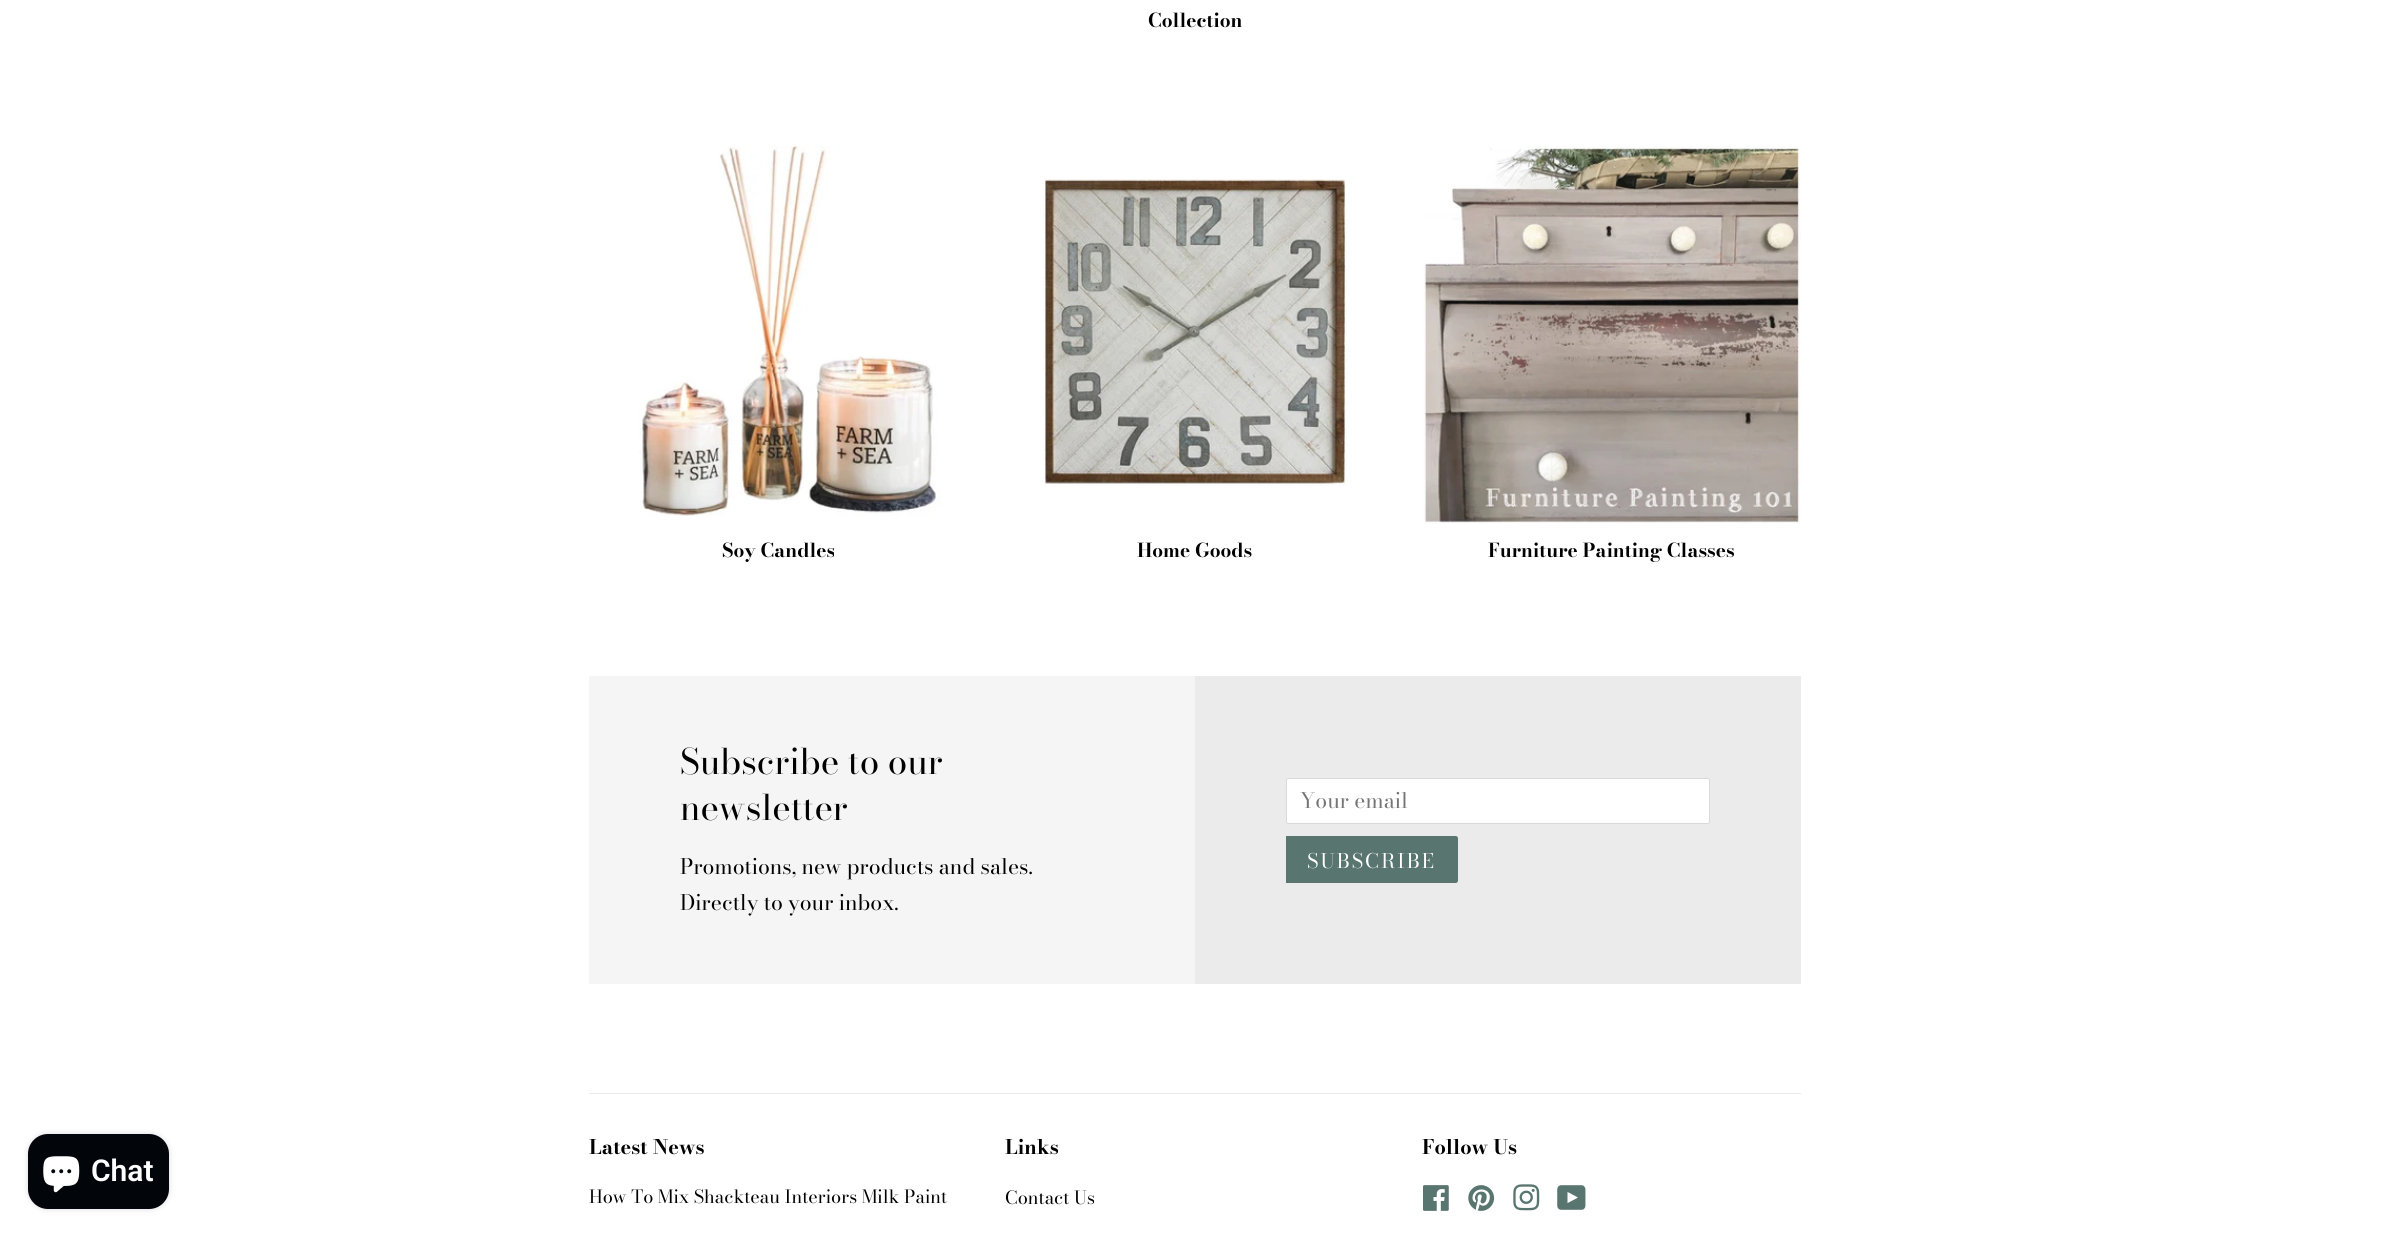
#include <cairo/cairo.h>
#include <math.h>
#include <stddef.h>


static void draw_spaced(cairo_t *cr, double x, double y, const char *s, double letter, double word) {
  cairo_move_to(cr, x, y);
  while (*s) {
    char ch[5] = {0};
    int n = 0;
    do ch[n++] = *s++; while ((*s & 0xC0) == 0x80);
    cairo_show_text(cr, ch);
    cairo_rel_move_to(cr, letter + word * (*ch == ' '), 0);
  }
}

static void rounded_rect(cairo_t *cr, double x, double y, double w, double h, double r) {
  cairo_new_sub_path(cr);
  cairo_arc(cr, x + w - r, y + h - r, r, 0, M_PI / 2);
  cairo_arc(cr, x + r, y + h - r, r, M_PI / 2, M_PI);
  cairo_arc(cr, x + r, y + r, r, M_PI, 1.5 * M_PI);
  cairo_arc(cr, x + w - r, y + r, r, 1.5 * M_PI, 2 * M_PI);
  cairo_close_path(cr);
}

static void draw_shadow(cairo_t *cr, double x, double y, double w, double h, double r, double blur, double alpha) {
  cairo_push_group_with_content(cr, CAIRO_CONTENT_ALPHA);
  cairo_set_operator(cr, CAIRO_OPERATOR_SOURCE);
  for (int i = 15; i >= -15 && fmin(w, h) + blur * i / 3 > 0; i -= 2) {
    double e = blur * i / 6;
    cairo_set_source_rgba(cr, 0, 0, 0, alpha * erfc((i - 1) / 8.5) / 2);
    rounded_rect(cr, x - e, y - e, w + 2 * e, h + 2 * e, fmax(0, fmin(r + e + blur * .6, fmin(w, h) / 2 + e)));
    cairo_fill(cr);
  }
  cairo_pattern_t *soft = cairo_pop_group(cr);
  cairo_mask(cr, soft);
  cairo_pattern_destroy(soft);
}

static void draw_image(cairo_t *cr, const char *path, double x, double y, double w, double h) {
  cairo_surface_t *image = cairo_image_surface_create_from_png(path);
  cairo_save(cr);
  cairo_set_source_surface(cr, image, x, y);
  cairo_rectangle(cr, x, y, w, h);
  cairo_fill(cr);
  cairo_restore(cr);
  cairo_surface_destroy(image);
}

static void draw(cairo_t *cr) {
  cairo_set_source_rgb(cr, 1, 1, 1);
  cairo_paint(cr);
  draw_image(cr, "images/1.png", 639, 146, 303, 370);
  draw_image(cr, "images/2.png", 1043, 179, 304, 307);
  draw_image(cr, "images/3.png", 1423, 146, 378, 378);
  cairo_set_source_rgb(cr, 245 / 255.0, 245 / 255.0, 245 / 255.0);
  cairo_rectangle(cr, 589, 676, 606, 308);
  cairo_fill(cr);
  cairo_set_source_rgb(cr, 234 / 255.0, 235 / 255.0, 234 / 255.0);
  cairo_rectangle(cr, 1195, 676, 606, 308);
  cairo_fill(cr);
  cairo_set_source_rgb(cr, 1, 1, 1);
  rounded_rect(cr, 1286, 778, 424, 46, 2.5);
  cairo_fill(cr);
  rounded_rect(cr, 1286.5, 778.5, 423, 45, 2);
  cairo_set_source_rgba(cr, 0, 0, 0, 0.15);
  cairo_set_line_width(cr, 1);
  cairo_stroke(cr);
  cairo_set_source_rgb(cr, 89 / 255.0, 117 / 255.0, 111 / 255.0);
  cairo_new_path(cr);
  cairo_move_to(cr, 1286, 836);
  cairo_line_to(cr, 1455.5, 836);
  cairo_curve_to(cr, 1457, 836, 1458, 837, 1458, 838.5);
  cairo_line_to(cr, 1458, 880.5);
  cairo_curve_to(cr, 1458, 882, 1457, 883, 1455.5, 883);
  cairo_line_to(cr, 1286, 883);
  cairo_close_path(cr);
  cairo_fill(cr);
  cairo_set_source_rgb(cr, 235 / 255.0, 235 / 255.0, 235 / 255.0);
  cairo_rectangle(cr, 589, 1093, 1212, 1);
  cairo_fill(cr);
  cairo_set_source_rgb(cr, 0, 0, 0);
  draw_shadow(cr, 28, 1134, 141, 75, 20, 3, 0.15);
  cairo_set_source_rgb(cr, 2 / 255.0, 5 / 255.0, 10 / 255.0);
  rounded_rect(cr, 28, 1134, 141, 75, 20);
  cairo_fill(cr);
  draw_image(cr, "images/4.png", 43, 1156, 37, 37);
  draw_image(cr, "images/5.png", 1423, 1185, 26, 26);
  draw_image(cr, "images/6.png", 1468, 1185, 27, 26);
  draw_image(cr, "images/7.png", 1513, 1184, 27, 27);
  draw_image(cr, "images/8.png", 1557, 1185, 29, 25);
  cairo_select_font_face(cr, "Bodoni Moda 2", CAIRO_FONT_SLANT_NORMAL, CAIRO_FONT_WEIGHT_BOLD);
  cairo_set_font_size(cr, 19.1);
  cairo_set_source_rgb(cr, 0, 0, 0);
  cairo_move_to(cr, 1148, 27);
  cairo_show_text(cr, "Collection");
  cairo_move_to(cr, 722, 557);
  cairo_show_text(cr, "Soy Candles");
  cairo_move_to(cr, 1137, 557);
  cairo_show_text(cr, "Home Goods");
  cairo_move_to(cr, 1488, 557);
  cairo_show_text(cr, "Furniture Painting Classes");
  cairo_select_font_face(cr, "Bodoni Moda", CAIRO_FONT_SLANT_NORMAL, CAIRO_FONT_WEIGHT_NORMAL);
  cairo_set_font_size(cr, 35);
  cairo_move_to(cr, 680, 774);
  cairo_show_text(cr, "Subscribe to our");
  cairo_move_to(cr, 680, 820);
  cairo_show_text(cr, "newsletter");
  cairo_select_font_face(cr, "Bodoni Moda 2", CAIRO_FONT_SLANT_NORMAL, CAIRO_FONT_WEIGHT_NORMAL);
  cairo_set_font_size(cr, 21.25);
  cairo_move_to(cr, 680, 874);
  cairo_show_text(cr, "Promotions, new products and sales.");
  cairo_move_to(cr, 680, 910);
  cairo_show_text(cr, "Directly to your inbox.");
  cairo_set_source_rgb(cr, 117 / 255.0, 117 / 255.0, 117 / 255.0);
  cairo_move_to(cr, 1300, 808);
  cairo_show_text(cr, "Your email");
  cairo_select_font_face(cr, "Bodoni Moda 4", CAIRO_FONT_SLANT_NORMAL, CAIRO_FONT_WEIGHT_NORMAL);
  cairo_set_font_size(cr, 20);
  cairo_set_source_rgb(cr, 1, 1, 1);
  draw_spaced(cr, 1307, 868, "SUBSCRIBE", 2, 0);
  cairo_select_font_face(cr, "Roboto SemiBold", CAIRO_FONT_SLANT_NORMAL, CAIRO_FONT_WEIGHT_NORMAL);
  cairo_set_font_size(cr, 30);
  cairo_move_to(cr, 91, 1181);
  cairo_show_text(cr, "Chat");
  cairo_select_font_face(cr, "Bodoni Moda", CAIRO_FONT_SLANT_NORMAL, CAIRO_FONT_WEIGHT_BOLD);
  cairo_set_font_size(cr, 20);
  cairo_set_source_rgb(cr, 0, 0, 0);
  cairo_move_to(cr, 589, 1154);
  cairo_show_text(cr, "Latest News");
  cairo_select_font_face(cr, "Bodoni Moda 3", CAIRO_FONT_SLANT_NORMAL, CAIRO_FONT_WEIGHT_NORMAL);
  cairo_set_font_size(cr, 18.1);
  cairo_move_to(cr, 589, 1203);
  cairo_show_text(cr, "How To Mix Shackteau Interiors Milk Paint");
  cairo_select_font_face(cr, "Bodoni Moda", CAIRO_FONT_SLANT_NORMAL, CAIRO_FONT_WEIGHT_BOLD);
  cairo_set_font_size(cr, 20);
  cairo_move_to(cr, 1005, 1154);
  cairo_show_text(cr, "Links");
  cairo_select_font_face(cr, "Bodoni Moda 3", CAIRO_FONT_SLANT_NORMAL, CAIRO_FONT_WEIGHT_NORMAL);
  cairo_set_font_size(cr, 18.1);
  cairo_move_to(cr, 1005, 1204);
  cairo_show_text(cr, "Contact Us");
  cairo_select_font_face(cr, "Bodoni Moda", CAIRO_FONT_SLANT_NORMAL, CAIRO_FONT_WEIGHT_BOLD);
  cairo_set_font_size(cr, 20);
  cairo_move_to(cr, 1422, 1154);
  cairo_show_text(cr, "Follow Us");
}

int main(void) {
  cairo_surface_t *surface = cairo_image_surface_create(CAIRO_FORMAT_RGB24, 2390, 1235);
  cairo_t *cr = cairo_create(surface);
  cairo_font_options_t *options = cairo_font_options_create();
  cairo_font_options_set_hint_metrics(options, CAIRO_HINT_METRICS_OFF);
  cairo_font_options_set_hint_style(options, CAIRO_HINT_STYLE_NONE);
  cairo_set_font_options(cr, options);
  cairo_set_miter_limit(cr, 4);
  draw(cr);
  cairo_surface_write_to_png(surface, "out.png");
  cairo_font_options_destroy(options);
  cairo_destroy(cr);
  cairo_surface_destroy(surface);
  return 0;
}
